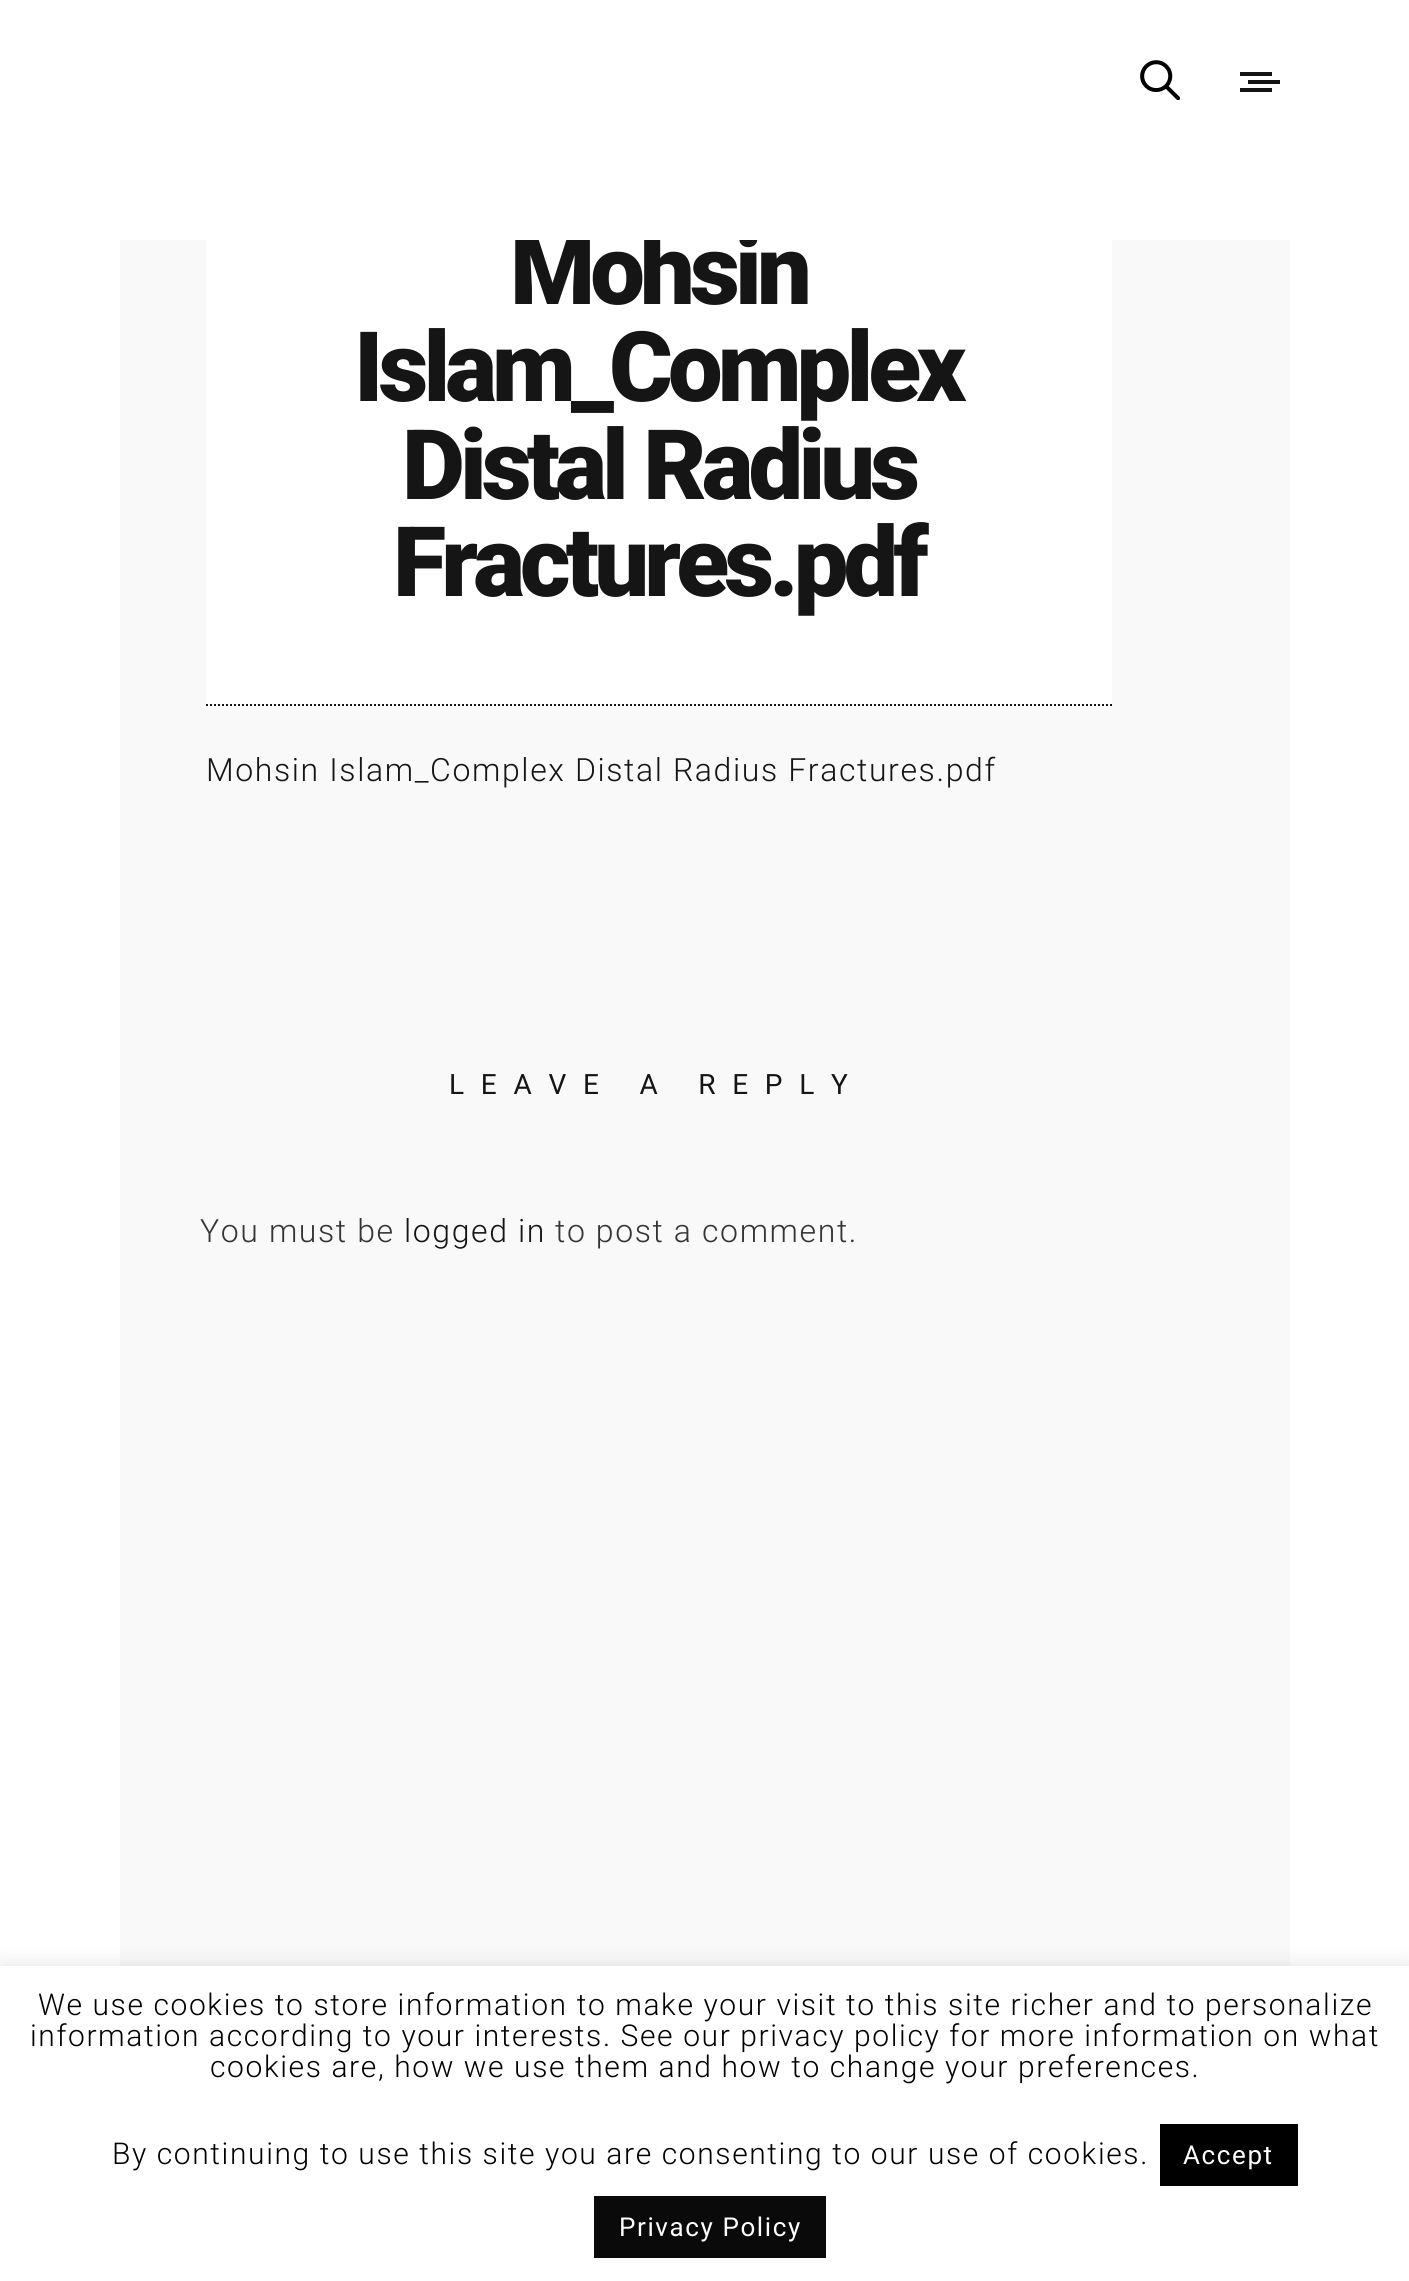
#include <cairo/cairo.h>
#include <math.h>
#include <stddef.h>


static void draw_spaced(cairo_t *cr, double x, double y, const char *s, double letter, double word) {
  cairo_move_to(cr, x, y);
  while (*s) {
    char ch[5] = {0};
    int n = 0;
    do ch[n++] = *s++; while ((*s & 0xC0) == 0x80);
    cairo_show_text(cr, ch);
    cairo_rel_move_to(cr, letter + word * (*ch == ' '), 0);
  }
}

static void rounded_rect(cairo_t *cr, double x, double y, double w, double h, double r) {
  cairo_new_sub_path(cr);
  cairo_arc(cr, x + w - r, y + h - r, r, 0, M_PI / 2);
  cairo_arc(cr, x + r, y + h - r, r, M_PI / 2, M_PI);
  cairo_arc(cr, x + r, y + r, r, M_PI, 1.5 * M_PI);
  cairo_arc(cr, x + w - r, y + r, r, 1.5 * M_PI, 2 * M_PI);
  cairo_close_path(cr);
}

static void draw_shadow(cairo_t *cr, double x, double y, double w, double h, double r, double blur, double alpha) {
  cairo_push_group_with_content(cr, CAIRO_CONTENT_ALPHA);
  cairo_set_operator(cr, CAIRO_OPERATOR_SOURCE);
  for (int i = 15; i >= -15 && fmin(w, h) + blur * i / 3 > 0; i -= 2) {
    double e = blur * i / 6;
    cairo_set_source_rgba(cr, 0, 0, 0, alpha * erfc((i - 1) / 8.5) / 2);
    rounded_rect(cr, x - e, y - e, w + 2 * e, h + 2 * e, fmax(0, fmin(r + e + blur * .6, fmin(w, h) / 2 + e)));
    cairo_fill(cr);
  }
  cairo_pattern_t *soft = cairo_pop_group(cr);
  cairo_mask(cr, soft);
  cairo_pattern_destroy(soft);
}

static void draw_image(cairo_t *cr, const char *path, double x, double y, double w, double h) {
  cairo_surface_t *image = cairo_image_surface_create_from_png(path);
  cairo_save(cr);
  cairo_set_source_surface(cr, image, x, y);
  cairo_rectangle(cr, x, y, w, h);
  cairo_fill(cr);
  cairo_restore(cr);
  cairo_surface_destroy(image);
}

static void draw(cairo_t *cr) {
  cairo_set_source_rgb(cr, 249 / 255.0, 249 / 255.0, 249 / 255.0);
  cairo_paint(cr);
  cairo_set_source_rgb(cr, 1, 1, 1);
  cairo_rectangle(cr, 0, 240, 120, 1726);
  cairo_fill(cr);
  cairo_rectangle(cr, 206, 240, 906, 466);
  cairo_fill(cr);
  cairo_new_path(cr);
  cairo_move_to(cr, 206, 705);
  cairo_line_to(cr, 1112, 705);
  cairo_set_source_rgb(cr, 21 / 255.0, 21 / 255.0, 21 / 255.0);
  cairo_set_dash(cr, (double[]){2, 2}, 2, 0);
  cairo_stroke(cr);
  cairo_set_source_rgb(cr, 1, 1, 1);
  cairo_rectangle(cr, 1290, 240, 119, 1726);
  cairo_fill(cr);
  cairo_set_source_rgb(cr, 172 / 255.0, 171 / 255.0, 171 / 255.0);
  draw_shadow(cr, 0, 1964, 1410, 316, 0, 10, 0.3);
  cairo_set_source_rgb(cr, 1, 1, 1);
  cairo_rectangle(cr, 0, 1966, 1409, 315);
  cairo_fill(cr);
  cairo_set_source_rgb(cr, 0, 0, 0);
  cairo_rectangle(cr, 1160, 2124, 138, 62);
  cairo_fill(cr);
  cairo_set_source_rgb(cr, 10 / 255.0, 10 / 255.0, 10 / 255.0);
  cairo_rectangle(cr, 594, 2196, 232, 62);
  cairo_fill(cr);
  cairo_select_font_face(cr, "Roboto Black", CAIRO_FONT_SLANT_NORMAL, CAIRO_FONT_WEIGHT_NORMAL);
  cairo_set_font_size(cr, 97.25);
  cairo_set_source_rgb(cr, 21 / 255.0, 21 / 255.0, 21 / 255.0);
  draw_spaced(cr, 510, 304, "Mohsin", -4.9, 0);
  cairo_set_source_rgb(cr, 1, 1, 1);
  cairo_rectangle(cr, 0, 0, 1409, 240);
  cairo_fill(cr);
  cairo_set_source_rgb(cr, 21 / 255.0, 21 / 255.0, 21 / 255.0);
  cairo_rectangle(cr, 1240, 88, 32, 4);
  cairo_fill(cr);
  cairo_rectangle(cr, 1248, 80, 32, 4);
  cairo_fill(cr);
  cairo_rectangle(cr, 1240, 72, 32, 4);
  cairo_fill(cr);
  draw_image(cr, "images/1.png", 1140, 60, 40, 40);
  draw_spaced(cr, 354, 401, "Islam_Complex", -4.9, 0);
  draw_spaced(cr, 402, 499, "Distal Radius", -4.9, 0);
  draw_spaced(cr, 393, 596, "Fractures.pdf", -4.9, 0);
  cairo_select_font_face(cr, "Roboto Light", CAIRO_FONT_SLANT_NORMAL, CAIRO_FONT_WEIGHT_NORMAL);
  cairo_set_font_size(cr, 32);
  draw_spaced(cr, 206, 781, "Mohsin Islam_Complex Distal Radius Fractures.pdf", 1.6, 0);
  cairo_select_font_face(cr, "Roboto", CAIRO_FONT_SLANT_NORMAL, CAIRO_FONT_WEIGHT_NORMAL);
  cairo_set_font_size(cr, 28);
  draw_spaced(cr, 449, 1094, "LEAVE A REPLY", 16.75, 0);
  cairo_select_font_face(cr, "Roboto Light", CAIRO_FONT_SLANT_NORMAL, CAIRO_FONT_WEIGHT_NORMAL);
  cairo_set_font_size(cr, 32);
  cairo_set_source_rgb(cr, 53 / 255.0, 53 / 255.0, 53 / 255.0);
  draw_spaced(cr, 200, 1242, "You must be", 1.6, 0);
  cairo_set_source_rgb(cr, 21 / 255.0, 21 / 255.0, 21 / 255.0);
  draw_spaced(cr, 404, 1242, "logged in", 1.6, 0);
  cairo_set_source_rgb(cr, 53 / 255.0, 53 / 255.0, 53 / 255.0);
  draw_spaced(cr, 555, 1242, "to post a comment.", 1.6, 0);
  cairo_set_font_size(cr, 30);
  cairo_set_source_rgb(cr, 0, 0, 0);
  draw_spaced(cr, 38, 2015, "We use cookies to store information to make your visit to this site richer and to personalize", 1.6, 0);
  draw_spaced(cr, 30, 2046, "information according to your interests. See our privacy policy for more information on what", 1.6, 0);
  draw_spaced(cr, 210, 2077, "cookies are, how we use them and how to change your preferences.", 1.6, 0);
  draw_spaced(cr, 112, 2164, "By continuing to use this site you are consenting to our use of cookies.", 1.6, 0);
  cairo_select_font_face(cr, "Roboto", CAIRO_FONT_SLANT_NORMAL, CAIRO_FONT_WEIGHT_NORMAL);
  cairo_set_font_size(cr, 26);
  cairo_set_source_rgb(cr, 1, 1, 1);
  draw_spaced(cr, 1183, 2164, "Accept", 1.6, 0);
  draw_spaced(cr, 619, 2236, "Privacy Policy", 1.6, 0);
}

int main(void) {
  cairo_surface_t *surface = cairo_image_surface_create(CAIRO_FORMAT_RGB24, 1409, 2281);
  cairo_t *cr = cairo_create(surface);
  cairo_font_options_t *options = cairo_font_options_create();
  cairo_font_options_set_hint_metrics(options, CAIRO_HINT_METRICS_OFF);
  cairo_font_options_set_hint_style(options, CAIRO_HINT_STYLE_NONE);
  cairo_set_font_options(cr, options);
  cairo_set_miter_limit(cr, 4);
  draw(cr);
  cairo_surface_write_to_png(surface, "out.png");
  cairo_font_options_destroy(options);
  cairo_destroy(cr);
  cairo_surface_destroy(surface);
  return 0;
}
